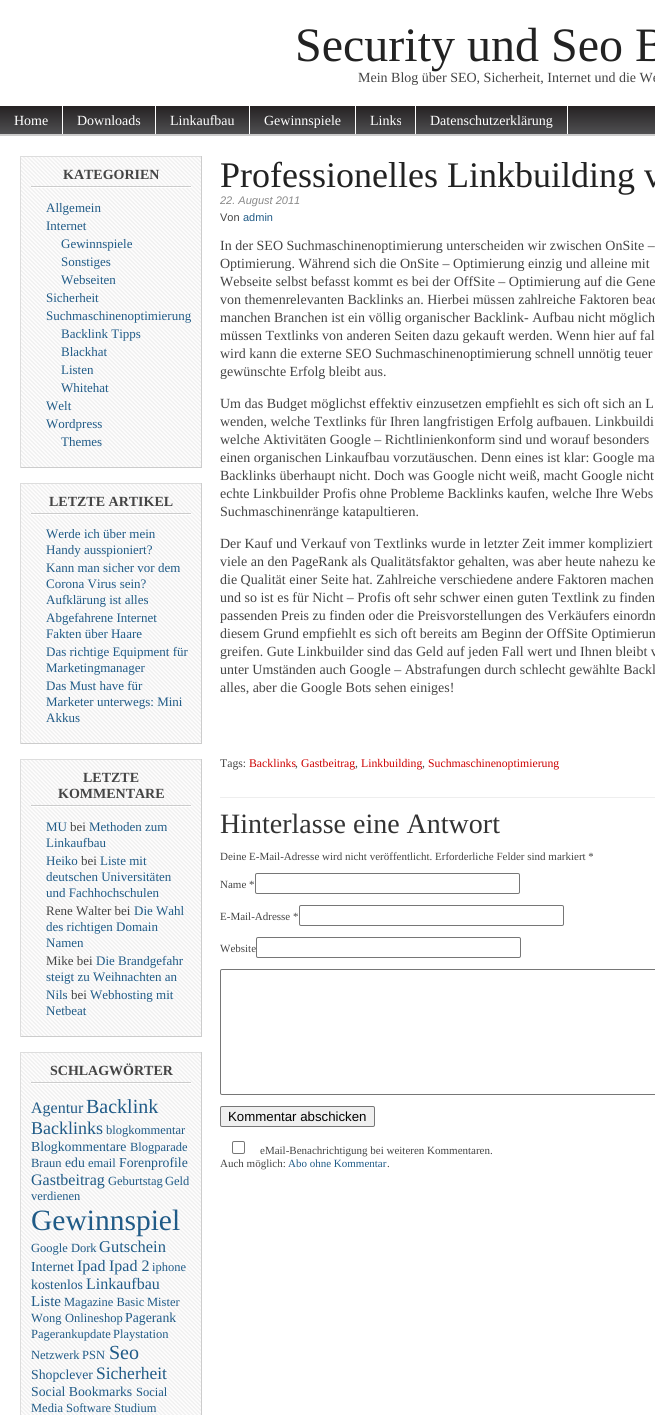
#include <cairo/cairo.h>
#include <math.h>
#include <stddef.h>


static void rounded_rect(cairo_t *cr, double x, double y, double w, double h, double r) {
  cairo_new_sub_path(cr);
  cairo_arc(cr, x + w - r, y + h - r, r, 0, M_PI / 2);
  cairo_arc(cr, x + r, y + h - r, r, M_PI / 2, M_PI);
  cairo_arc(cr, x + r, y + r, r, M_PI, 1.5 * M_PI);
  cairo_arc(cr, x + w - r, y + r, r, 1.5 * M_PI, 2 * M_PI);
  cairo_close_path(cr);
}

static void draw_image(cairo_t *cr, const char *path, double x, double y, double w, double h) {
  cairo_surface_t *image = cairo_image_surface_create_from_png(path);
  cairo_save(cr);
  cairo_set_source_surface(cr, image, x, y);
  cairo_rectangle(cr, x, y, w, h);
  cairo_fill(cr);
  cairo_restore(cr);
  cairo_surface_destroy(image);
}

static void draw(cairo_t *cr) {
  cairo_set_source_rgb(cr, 1, 1, 1);
  cairo_paint(cr);
  draw_image(cr, "images/1.png", 0, 106, 655, 28);
  cairo_set_source_rgb(cr, 1, 1, 1);
  cairo_rectangle(cr, 62, 106, 1, 28);
  cairo_fill(cr);
  cairo_rectangle(cr, 155, 106, 1, 28);
  cairo_fill(cr);
  cairo_rectangle(cr, 249, 106, 1, 28);
  cairo_fill(cr);
  cairo_rectangle(cr, 355, 106, 1, 28);
  cairo_fill(cr);
  cairo_rectangle(cr, 415, 106, 1, 28);
  cairo_fill(cr);
  cairo_rectangle(cr, 567, 106, 1, 28);
  cairo_fill(cr);
  cairo_set_source_rgb(cr, 204 / 255.0, 204 / 255.0, 204 / 255.0);
  cairo_rectangle(cr, 0, 134, 655, 2);
  cairo_fill(cr);
  draw_image(cr, "images/2.png", 21, 157, 180, 310);
  cairo_set_source_rgb(cr, 221 / 255.0, 221 / 255.0, 221 / 255.0);
  cairo_rectangle(cr, 20, 156, 182, 1);
  cairo_fill(cr);
  cairo_set_source_rgb(cr, 204 / 255.0, 204 / 255.0, 204 / 255.0);
  cairo_rectangle(cr, 201, 156, 1, 312);
  cairo_fill(cr);
  cairo_rectangle(cr, 20, 467, 182, 1);
  cairo_fill(cr);
  cairo_set_source_rgb(cr, 221 / 255.0, 221 / 255.0, 221 / 255.0);
  cairo_rectangle(cr, 20, 156, 1, 312);
  cairo_fill(cr);
  draw_image(cr, "images/3.png", 31, 186, 160, 2);
  draw_image(cr, "images/4.png", 21, 484, 180, 259);
  cairo_rectangle(cr, 20, 483, 182, 1);
  cairo_fill(cr);
  cairo_set_source_rgb(cr, 204 / 255.0, 204 / 255.0, 204 / 255.0);
  cairo_rectangle(cr, 201, 483, 1, 261);
  cairo_fill(cr);
  cairo_rectangle(cr, 20, 743, 182, 1);
  cairo_fill(cr);
  cairo_set_source_rgb(cr, 221 / 255.0, 221 / 255.0, 221 / 255.0);
  cairo_rectangle(cr, 20, 483, 1, 261);
  cairo_fill(cr);
  draw_image(cr, "images/3.png", 31, 513, 160, 2);
  draw_image(cr, "images/5.png", 21, 760, 180, 276);
  cairo_rectangle(cr, 20, 759, 182, 1);
  cairo_fill(cr);
  cairo_set_source_rgb(cr, 204 / 255.0, 204 / 255.0, 204 / 255.0);
  cairo_rectangle(cr, 201, 759, 1, 278);
  cairo_fill(cr);
  cairo_rectangle(cr, 20, 1036, 182, 1);
  cairo_fill(cr);
  cairo_set_source_rgb(cr, 221 / 255.0, 221 / 255.0, 221 / 255.0);
  cairo_rectangle(cr, 20, 759, 1, 278);
  cairo_fill(cr);
  draw_image(cr, "images/3.png", 31, 805, 160, 2);
  draw_image(cr, "images/6.png", 21, 1053, 180, 362);
  cairo_rectangle(cr, 20, 1052, 182, 1);
  cairo_fill(cr);
  cairo_set_source_rgb(cr, 204 / 255.0, 204 / 255.0, 204 / 255.0);
  cairo_rectangle(cr, 201, 1052, 1, 363);
  cairo_fill(cr);
  cairo_set_source_rgb(cr, 221 / 255.0, 221 / 255.0, 221 / 255.0);
  cairo_rectangle(cr, 20, 1052, 1, 363);
  cairo_fill(cr);
  draw_image(cr, "images/3.png", 31, 1082, 160, 2);
  cairo_set_source_rgb(cr, 238 / 255.0, 238 / 255.0, 238 / 255.0);
  cairo_rectangle(cr, 220, 797, 435, 1);
  cairo_fill(cr);
  rounded_rect(cr, 255.5, 873.5, 264, 20, 1.5);
  cairo_set_source_rgb(cr, 118 / 255.0, 118 / 255.0, 118 / 255.0);
  cairo_set_line_width(cr, 1);
  cairo_stroke(cr);
  rounded_rect(cr, 299.5, 905.5, 264, 20, 1.5);
  cairo_stroke(cr);
  rounded_rect(cr, 256.5, 937.5, 264, 20, 1.5);
  cairo_stroke(cr);
  rounded_rect(cr, 220.5, 969.5, 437, 125, 1.5);
  cairo_stroke(cr);
  cairo_set_source_rgb(cr, 239 / 255.0, 239 / 255.0, 239 / 255.0);
  rounded_rect(cr, 220.5, 1106.5, 154, 20, 1.5);
  cairo_fill_preserve(cr);
  cairo_set_source_rgb(cr, 118 / 255.0, 118 / 255.0, 118 / 255.0);
  cairo_stroke(cr);
  rounded_rect(cr, 232.5, 1141.5, 12, 12, 1.5);
  cairo_stroke(cr);
  cairo_select_font_face(cr, "Liberation Serif", CAIRO_FONT_SLANT_NORMAL, CAIRO_FONT_WEIGHT_NORMAL);
  cairo_set_font_size(cr, 48);
  cairo_set_source_rgb(cr, 34 / 255.0, 34 / 255.0, 34 / 255.0);
  cairo_move_to(cr, 295, 61);
  cairo_show_text(cr, "Security und Seo B");
  cairo_set_font_size(cr, 14);
  cairo_set_source_rgb(cr, 68 / 255.0, 68 / 255.0, 68 / 255.0);
  cairo_move_to(cr, 358, 82);
  cairo_show_text(cr, "Mein Blog über SEO, Sicherheit, Internet und die We");
  cairo_set_source_rgb(cr, 1, 1, 1);
  cairo_move_to(cr, 14, 125);
  cairo_show_text(cr, "Home");
  cairo_move_to(cr, 77, 125);
  cairo_show_text(cr, "Downloads");
  cairo_move_to(cr, 170, 125);
  cairo_show_text(cr, "Linkaufbau");
  cairo_move_to(cr, 264, 125);
  cairo_show_text(cr, "Gewinnspiele");
  cairo_move_to(cr, 370, 125);
  cairo_show_text(cr, "Links");
  cairo_move_to(cr, 430, 125);
  cairo_show_text(cr, "Datenschutzerklärung");
  cairo_select_font_face(cr, "Liberation Serif", CAIRO_FONT_SLANT_NORMAL, CAIRO_FONT_WEIGHT_BOLD);
  cairo_set_source_rgb(cr, 68 / 255.0, 68 / 255.0, 68 / 255.0);
  cairo_move_to(cr, 63, 179);
  cairo_show_text(cr, "KATEGORIEN");
  cairo_select_font_face(cr, "Liberation Serif", CAIRO_FONT_SLANT_NORMAL, CAIRO_FONT_WEIGHT_NORMAL);
  cairo_set_font_size(cr, 13);
  cairo_set_source_rgb(cr, 32 / 255.0, 91 / 255.0, 135 / 255.0);
  cairo_move_to(cr, 46, 212);
  cairo_show_text(cr, "Allgemein");
  cairo_move_to(cr, 46, 230);
  cairo_show_text(cr, "Internet");
  cairo_move_to(cr, 61, 248);
  cairo_show_text(cr, "Gewinnspiele");
  cairo_move_to(cr, 61, 266);
  cairo_show_text(cr, "Sonstiges");
  cairo_move_to(cr, 61, 284);
  cairo_show_text(cr, "Webseiten");
  cairo_move_to(cr, 46, 302);
  cairo_show_text(cr, "Sicherheit");
  cairo_move_to(cr, 46, 320);
  cairo_show_text(cr, "Suchmaschinenoptimierung");
  cairo_move_to(cr, 61, 338);
  cairo_show_text(cr, "Backlink Tipps");
  cairo_move_to(cr, 61, 356);
  cairo_show_text(cr, "Blackhat");
  cairo_move_to(cr, 61, 374);
  cairo_show_text(cr, "Listen");
  cairo_move_to(cr, 61, 392);
  cairo_show_text(cr, "Whitehat");
  cairo_move_to(cr, 46, 410);
  cairo_show_text(cr, "Welt");
  cairo_move_to(cr, 46, 428);
  cairo_show_text(cr, "Wordpress");
  cairo_move_to(cr, 61, 446);
  cairo_show_text(cr, "Themes");
  cairo_select_font_face(cr, "Liberation Serif", CAIRO_FONT_SLANT_NORMAL, CAIRO_FONT_WEIGHT_BOLD);
  cairo_set_font_size(cr, 14);
  cairo_set_source_rgb(cr, 68 / 255.0, 68 / 255.0, 68 / 255.0);
  cairo_move_to(cr, 49, 506);
  cairo_show_text(cr, "LETZTE ARTIKEL");
  cairo_select_font_face(cr, "Liberation Serif", CAIRO_FONT_SLANT_NORMAL, CAIRO_FONT_WEIGHT_NORMAL);
  cairo_set_font_size(cr, 13);
  cairo_set_source_rgb(cr, 32 / 255.0, 91 / 255.0, 135 / 255.0);
  cairo_move_to(cr, 46, 538);
  cairo_show_text(cr, "Werde ich über mein");
  cairo_move_to(cr, 46, 554);
  cairo_show_text(cr, "Handy ausspioniert?");
  cairo_move_to(cr, 46, 572);
  cairo_show_text(cr, "Kann man sicher vor dem");
  cairo_move_to(cr, 46, 588);
  cairo_show_text(cr, "Corona Virus sein?");
  cairo_move_to(cr, 46, 604);
  cairo_show_text(cr, "Aufklärung ist alles");
  cairo_move_to(cr, 46, 622);
  cairo_show_text(cr, "Abgefahrene Internet");
  cairo_move_to(cr, 46, 638);
  cairo_show_text(cr, "Fakten über Haare");
  cairo_move_to(cr, 46, 656);
  cairo_show_text(cr, "Das richtige Equipment für");
  cairo_move_to(cr, 46, 672);
  cairo_show_text(cr, "Marketingmanager");
  cairo_move_to(cr, 46, 690);
  cairo_show_text(cr, "Das Must have für");
  cairo_move_to(cr, 46, 706);
  cairo_show_text(cr, "Marketer unterwegs: Mini");
  cairo_move_to(cr, 46, 722);
  cairo_show_text(cr, "Akkus");
  cairo_select_font_face(cr, "Liberation Serif", CAIRO_FONT_SLANT_NORMAL, CAIRO_FONT_WEIGHT_BOLD);
  cairo_set_font_size(cr, 14);
  cairo_set_source_rgb(cr, 68 / 255.0, 68 / 255.0, 68 / 255.0);
  cairo_move_to(cr, 83, 782);
  cairo_show_text(cr, "LETZTE");
  cairo_move_to(cr, 58, 798);
  cairo_show_text(cr, "KOMMENTARE");
  cairo_select_font_face(cr, "Liberation Serif", CAIRO_FONT_SLANT_NORMAL, CAIRO_FONT_WEIGHT_NORMAL);
  cairo_set_font_size(cr, 13);
  cairo_set_source_rgb(cr, 32 / 255.0, 91 / 255.0, 135 / 255.0);
  cairo_move_to(cr, 46, 831);
  cairo_show_text(cr, "MU");
  cairo_set_source_rgb(cr, 68 / 255.0, 68 / 255.0, 68 / 255.0);
  cairo_move_to(cr, 70, 831);
  cairo_show_text(cr, "bei");
  cairo_set_source_rgb(cr, 32 / 255.0, 91 / 255.0, 135 / 255.0);
  cairo_move_to(cr, 89, 831);
  cairo_show_text(cr, "Methoden zum");
  cairo_move_to(cr, 46, 847);
  cairo_show_text(cr, "Linkaufbau");
  cairo_move_to(cr, 46, 865);
  cairo_show_text(cr, "Heiko");
  cairo_set_source_rgb(cr, 68 / 255.0, 68 / 255.0, 68 / 255.0);
  cairo_move_to(cr, 81, 865);
  cairo_show_text(cr, "bei");
  cairo_set_source_rgb(cr, 32 / 255.0, 91 / 255.0, 135 / 255.0);
  cairo_move_to(cr, 100, 865);
  cairo_show_text(cr, "Liste mit");
  cairo_move_to(cr, 46, 881);
  cairo_show_text(cr, "deutschen Universitäten");
  cairo_move_to(cr, 46, 897);
  cairo_show_text(cr, "und Fachhochschulen");
  cairo_set_source_rgb(cr, 68 / 255.0, 68 / 255.0, 68 / 255.0);
  cairo_move_to(cr, 46, 915);
  cairo_show_text(cr, "Rene Walter bei");
  cairo_set_source_rgb(cr, 32 / 255.0, 91 / 255.0, 135 / 255.0);
  cairo_move_to(cr, 134, 915);
  cairo_show_text(cr, "Die Wahl");
  cairo_move_to(cr, 46, 931);
  cairo_show_text(cr, "des richtigen Domain");
  cairo_move_to(cr, 46, 947);
  cairo_show_text(cr, "Namen");
  cairo_set_source_rgb(cr, 68 / 255.0, 68 / 255.0, 68 / 255.0);
  cairo_move_to(cr, 46, 965);
  cairo_show_text(cr, "Mike bei");
  cairo_set_source_rgb(cr, 32 / 255.0, 91 / 255.0, 135 / 255.0);
  cairo_move_to(cr, 96, 965);
  cairo_show_text(cr, "Die Brandgefahr");
  cairo_move_to(cr, 46, 981);
  cairo_show_text(cr, "steigt zu Weihnachten an");
  cairo_move_to(cr, 46, 999);
  cairo_show_text(cr, "Nils");
  cairo_set_source_rgb(cr, 68 / 255.0, 68 / 255.0, 68 / 255.0);
  cairo_move_to(cr, 71, 999);
  cairo_show_text(cr, "bei");
  cairo_set_source_rgb(cr, 32 / 255.0, 91 / 255.0, 135 / 255.0);
  cairo_move_to(cr, 90, 999);
  cairo_show_text(cr, "Webhosting mit");
  cairo_move_to(cr, 46, 1015);
  cairo_show_text(cr, "Netbeat");
  cairo_select_font_face(cr, "Liberation Serif", CAIRO_FONT_SLANT_NORMAL, CAIRO_FONT_WEIGHT_BOLD);
  cairo_set_font_size(cr, 14);
  cairo_set_source_rgb(cr, 68 / 255.0, 68 / 255.0, 68 / 255.0);
  cairo_move_to(cr, 50, 1075);
  cairo_show_text(cr, "SCHLAGWÖRTER");
  cairo_select_font_face(cr, "Liberation Serif", CAIRO_FONT_SLANT_NORMAL, CAIRO_FONT_WEIGHT_NORMAL);
  cairo_set_font_size(cr, 16);
  cairo_set_source_rgb(cr, 32 / 255.0, 91 / 255.0, 135 / 255.0);
  cairo_move_to(cr, 31, 1113);
  cairo_show_text(cr, "Agentur");
  cairo_set_font_size(cr, 20);
  cairo_move_to(cr, 86, 1113);
  cairo_show_text(cr, "Backlink");
  cairo_set_font_size(cr, 18);
  cairo_move_to(cr, 31, 1134);
  cairo_show_text(cr, "Backlinks");
  cairo_set_font_size(cr, 12.5);
  cairo_move_to(cr, 106, 1134);
  cairo_show_text(cr, "blogkommentar");
  cairo_set_font_size(cr, 13.75);
  cairo_move_to(cr, 31, 1151);
  cairo_show_text(cr, "Blogkommentare");
  cairo_set_font_size(cr, 12.5);
  cairo_move_to(cr, 130, 1151);
  cairo_show_text(cr, "Blogparade");
  cairo_move_to(cr, 31, 1167);
  cairo_show_text(cr, "Braun");
  cairo_set_font_size(cr, 13.75);
  cairo_move_to(cr, 65, 1167);
  cairo_show_text(cr, "edu");
  cairo_set_font_size(cr, 12.5);
  cairo_move_to(cr, 88, 1167);
  cairo_show_text(cr, "email");
  cairo_set_font_size(cr, 13.75);
  cairo_move_to(cr, 119, 1167);
  cairo_show_text(cr, "Forenprofile");
  cairo_set_font_size(cr, 16);
  cairo_move_to(cr, 31, 1185);
  cairo_show_text(cr, "Gastbeitrag");
  cairo_set_font_size(cr, 12.5);
  cairo_move_to(cr, 108, 1185);
  cairo_show_text(cr, "Geburtstag");
  cairo_move_to(cr, 165, 1185);
  cairo_show_text(cr, "Geld");
  cairo_move_to(cr, 31, 1200);
  cairo_show_text(cr, "verdienen");
  cairo_set_font_size(cr, 29.5);
  cairo_move_to(cr, 31, 1230);
  cairo_show_text(cr, "Gewinnspiel");
  cairo_set_font_size(cr, 12.5);
  cairo_move_to(cr, 31, 1252);
  cairo_show_text(cr, "Google Dork");
  cairo_set_font_size(cr, 16.5);
  cairo_move_to(cr, 99, 1252);
  cairo_show_text(cr, "Gutschein");
  cairo_set_font_size(cr, 13.75);
  cairo_move_to(cr, 31, 1271);
  cairo_show_text(cr, "Internet");
  cairo_set_font_size(cr, 16);
  cairo_move_to(cr, 77, 1271);
  cairo_show_text(cr, "Ipad");
  cairo_move_to(cr, 109, 1271);
  cairo_show_text(cr, "Ipad 2");
  cairo_set_font_size(cr, 12.5);
  cairo_move_to(cr, 152, 1271);
  cairo_show_text(cr, "iphone");
  cairo_set_font_size(cr, 13.75);
  cairo_move_to(cr, 31, 1289);
  cairo_show_text(cr, "kostenlos");
  cairo_set_font_size(cr, 16);
  cairo_move_to(cr, 86, 1289);
  cairo_show_text(cr, "Linkaufbau");
  cairo_set_font_size(cr, 15);
  cairo_move_to(cr, 31, 1306);
  cairo_show_text(cr, "Liste");
  cairo_set_font_size(cr, 12.5);
  cairo_move_to(cr, 64, 1306);
  cairo_show_text(cr, "Magazine Basic");
  cairo_move_to(cr, 147, 1306);
  cairo_show_text(cr, "Mister");
  cairo_move_to(cr, 31, 1322);
  cairo_show_text(cr, "Wong");
  cairo_move_to(cr, 65, 1322);
  cairo_show_text(cr, "Onlineshop");
  cairo_set_font_size(cr, 13.75);
  cairo_move_to(cr, 125, 1322);
  cairo_show_text(cr, "Pagerank");
  cairo_set_font_size(cr, 12.5);
  cairo_move_to(cr, 31, 1338);
  cairo_show_text(cr, "Pagerankupdate");
  cairo_move_to(cr, 113, 1338);
  cairo_show_text(cr, "Playstation");
  cairo_move_to(cr, 31, 1359);
  cairo_show_text(cr, "Netzwerk");
  cairo_move_to(cr, 82, 1359);
  cairo_show_text(cr, "PSN");
  cairo_set_font_size(cr, 20);
  cairo_move_to(cr, 109, 1359);
  cairo_show_text(cr, "Seo");
  cairo_set_font_size(cr, 13.75);
  cairo_move_to(cr, 31, 1379);
  cairo_show_text(cr, "Shopclever");
  cairo_set_font_size(cr, 17.5);
  cairo_move_to(cr, 96, 1379);
  cairo_show_text(cr, "Sicherheit");
  cairo_set_font_size(cr, 13.75);
  cairo_move_to(cr, 31, 1396);
  cairo_show_text(cr, "Social Bookmarks");
  cairo_set_font_size(cr, 12.5);
  cairo_move_to(cr, 136, 1396);
  cairo_show_text(cr, "Social");
  cairo_move_to(cr, 31, 1412);
  cairo_show_text(cr, "Media");
  cairo_move_to(cr, 66, 1412);
  cairo_show_text(cr, "Software");
  cairo_move_to(cr, 114, 1412);
  cairo_show_text(cr, "Studium");
  cairo_set_font_size(cr, 36);
  cairo_set_source_rgb(cr, 34 / 255.0, 34 / 255.0, 34 / 255.0);
  cairo_move_to(cr, 220, 187);
  cairo_show_text(cr, "Professionelles Linkbuilding v");
  cairo_select_font_face(cr, "Liberation Sans", CAIRO_FONT_SLANT_ITALIC, CAIRO_FONT_WEIGHT_NORMAL);
  cairo_set_font_size(cr, 11);
  cairo_set_source_rgb(cr, 136 / 255.0, 136 / 255.0, 136 / 255.0);
  cairo_move_to(cr, 220, 204);
  cairo_show_text(cr, "22. August 2011");
  cairo_select_font_face(cr, "Liberation Sans", CAIRO_FONT_SLANT_NORMAL, CAIRO_FONT_WEIGHT_NORMAL);
  cairo_set_source_rgb(cr, 68 / 255.0, 68 / 255.0, 68 / 255.0);
  cairo_move_to(cr, 220, 221);
  cairo_show_text(cr, "Von");
  cairo_set_source_rgb(cr, 32 / 255.0, 91 / 255.0, 135 / 255.0);
  cairo_move_to(cr, 243, 221);
  cairo_show_text(cr, "admin");
  cairo_select_font_face(cr, "Liberation Serif", CAIRO_FONT_SLANT_NORMAL, CAIRO_FONT_WEIGHT_NORMAL);
  cairo_set_font_size(cr, 14);
  cairo_set_source_rgb(cr, 68 / 255.0, 68 / 255.0, 68 / 255.0);
  cairo_move_to(cr, 220, 250);
  cairo_show_text(cr, "In der SEO Suchmaschinenoptimierung unterscheiden wir zwischen OnSite –");
  cairo_move_to(cr, 220, 268);
  cairo_show_text(cr, "Optimierung. Während sich die OnSite – Optimierung einzig und alleine mit");
  cairo_move_to(cr, 220, 286);
  cairo_show_text(cr, "Webseite selbst befasst kommt es bei der OffSite – Optimierung auf die Gene");
  cairo_move_to(cr, 220, 304);
  cairo_show_text(cr, "von themenrelevanten Backlinks an. Hierbei müssen zahlreiche Faktoren beac");
  cairo_move_to(cr, 220, 322);
  cairo_show_text(cr, "manchen Branchen ist ein völlig organischer Backlink- Aufbau nicht möglich");
  cairo_move_to(cr, 220, 340);
  cairo_show_text(cr, "müssen Textlinks von anderen Seiten dazu gekauft werden. Wenn hier auf fal");
  cairo_move_to(cr, 220, 358);
  cairo_show_text(cr, "wird kann die externe SEO Suchmaschinenoptimierung schnell unnötig teuer");
  cairo_move_to(cr, 220, 376);
  cairo_show_text(cr, "gewünschte Erfolg bleibt aus.");
  cairo_move_to(cr, 220, 408);
  cairo_show_text(cr, "Um das Budget möglichst effektiv einzusetzen empfiehlt es sich oft sich an L");
  cairo_move_to(cr, 220, 426);
  cairo_show_text(cr, "wenden, welche Textlinks für Ihren langfristigen Erfolg aufbauen. Linkbuildi");
  cairo_move_to(cr, 220, 444);
  cairo_show_text(cr, "welche Aktivitäten Google – Richtlinienkonform sind und worauf besonders");
  cairo_move_to(cr, 220, 462);
  cairo_show_text(cr, "einen organischen Linkaufbau vorzutäuschen. Denn eines ist klar: Google ma");
  cairo_move_to(cr, 220, 480);
  cairo_show_text(cr, "Backlinks überhaupt nicht. Doch was Google nicht weiß, macht Google nicht");
  cairo_move_to(cr, 220, 498);
  cairo_show_text(cr, "echte Linkbuilder Profis ohne Probleme Backlinks kaufen, welche Ihre Webs");
  cairo_move_to(cr, 220, 516);
  cairo_show_text(cr, "Suchmaschinenränge katapultieren.");
  cairo_move_to(cr, 220, 548);
  cairo_show_text(cr, "Der Kauf und Verkauf von Textlinks wurde in letzter Zeit immer kompliziert");
  cairo_move_to(cr, 220, 566);
  cairo_show_text(cr, "viele an den PageRank als Qualitätsfaktor gehalten, was aber heute nahezu ke");
  cairo_move_to(cr, 220, 584);
  cairo_show_text(cr, "die Qualität einer Seite hat. Zahlreiche verschiedene andere Faktoren machen");
  cairo_move_to(cr, 220, 602);
  cairo_show_text(cr, "und so ist es für Nicht – Profis oft sehr schwer einen guten Textlink zu finden");
  cairo_move_to(cr, 220, 620);
  cairo_show_text(cr, "passenden Preis zu finden oder die Preisvorstellungen des Verkäufers einordn");
  cairo_move_to(cr, 220, 638);
  cairo_show_text(cr, "diesem Grund empfiehlt es sich oft bereits am Beginn der OffSite Optimierun");
  cairo_move_to(cr, 220, 656);
  cairo_show_text(cr, "greifen. Gute Linkbuilder sind das Geld auf jeden Fall wert und Ihnen bleibt v");
  cairo_move_to(cr, 220, 674);
  cairo_show_text(cr, "unter Umständen auch Google – Abstrafungen durch schlecht gewählte Backl");
  cairo_move_to(cr, 220, 692);
  cairo_show_text(cr, "alles, aber die Google Bots sehen einiges!");
  cairo_set_font_size(cr, 11.75);
  cairo_move_to(cr, 220, 767);
  cairo_show_text(cr, "Tags:");
  cairo_set_source_rgb(cr, 204 / 255.0, 0, 0);
  cairo_move_to(cr, 249, 767);
  cairo_show_text(cr, "Backlinks");
  cairo_set_source_rgb(cr, 68 / 255.0, 68 / 255.0, 68 / 255.0);
  cairo_move_to(cr, 295, 767);
  cairo_show_text(cr, ",");
  cairo_set_source_rgb(cr, 204 / 255.0, 0, 0);
  cairo_move_to(cr, 301, 767);
  cairo_show_text(cr, "Gastbeitrag");
  cairo_set_source_rgb(cr, 68 / 255.0, 68 / 255.0, 68 / 255.0);
  cairo_move_to(cr, 355, 767);
  cairo_show_text(cr, ",");
  cairo_set_source_rgb(cr, 204 / 255.0, 0, 0);
  cairo_move_to(cr, 361, 767);
  cairo_show_text(cr, "Linkbuilding");
  cairo_set_source_rgb(cr, 68 / 255.0, 68 / 255.0, 68 / 255.0);
  cairo_move_to(cr, 422, 767);
  cairo_show_text(cr, ",");
  cairo_set_source_rgb(cr, 204 / 255.0, 0, 0);
  cairo_move_to(cr, 428, 767);
  cairo_show_text(cr, "Suchmaschinenoptimierung");
  cairo_set_font_size(cr, 28);
  cairo_set_source_rgb(cr, 51 / 255.0, 51 / 255.0, 51 / 255.0);
  cairo_move_to(cr, 220, 833);
  cairo_show_text(cr, "Hinterlasse eine Antwort");
  cairo_set_font_size(cr, 11);
  cairo_set_source_rgb(cr, 68 / 255.0, 68 / 255.0, 68 / 255.0);
  cairo_move_to(cr, 220, 860);
  cairo_show_text(cr, "Deine E-Mail-Adresse wird nicht veröffentlicht. Erforderliche Felder sind markiert *");
  cairo_move_to(cr, 220, 888);
  cairo_show_text(cr, "Name *");
  cairo_move_to(cr, 220, 920);
  cairo_show_text(cr, "E-Mail-Adresse *");
  cairo_move_to(cr, 220, 952);
  cairo_show_text(cr, "Website");
  cairo_select_font_face(cr, "Liberation Sans", CAIRO_FONT_SLANT_NORMAL, CAIRO_FONT_WEIGHT_NORMAL);
  cairo_set_font_size(cr, 13.25);
  cairo_set_source_rgb(cr, 0, 0, 0);
  cairo_move_to(cr, 228, 1121);
  cairo_show_text(cr, "Kommentar abschicken");
  cairo_select_font_face(cr, "Liberation Serif", CAIRO_FONT_SLANT_NORMAL, CAIRO_FONT_WEIGHT_NORMAL);
  cairo_set_font_size(cr, 11);
  cairo_set_source_rgb(cr, 68 / 255.0, 68 / 255.0, 68 / 255.0);
  cairo_move_to(cr, 260, 1154);
  cairo_show_text(cr, "eMail-Benachrichtigung bei weiteren Kommentaren.");
  cairo_move_to(cr, 220, 1167);
  cairo_show_text(cr, "Auch möglich:");
  cairo_set_source_rgb(cr, 32 / 255.0, 91 / 255.0, 135 / 255.0);
  cairo_move_to(cr, 288, 1167);
  cairo_show_text(cr, "Abo ohne Kommentar");
  cairo_set_source_rgb(cr, 68 / 255.0, 68 / 255.0, 68 / 255.0);
  cairo_move_to(cr, 387, 1167);
  cairo_show_text(cr, ".");
}

int main(void) {
  cairo_surface_t *surface = cairo_image_surface_create(CAIRO_FORMAT_RGB24, 655, 1415);
  cairo_t *cr = cairo_create(surface);
  cairo_font_options_t *options = cairo_font_options_create();
  cairo_font_options_set_hint_metrics(options, CAIRO_HINT_METRICS_OFF);
  cairo_font_options_set_hint_style(options, CAIRO_HINT_STYLE_NONE);
  cairo_set_font_options(cr, options);
  cairo_set_miter_limit(cr, 4);
  draw(cr);
  cairo_surface_write_to_png(surface, "out.png");
  cairo_font_options_destroy(options);
  cairo_destroy(cr);
  cairo_surface_destroy(surface);
  return 0;
}
